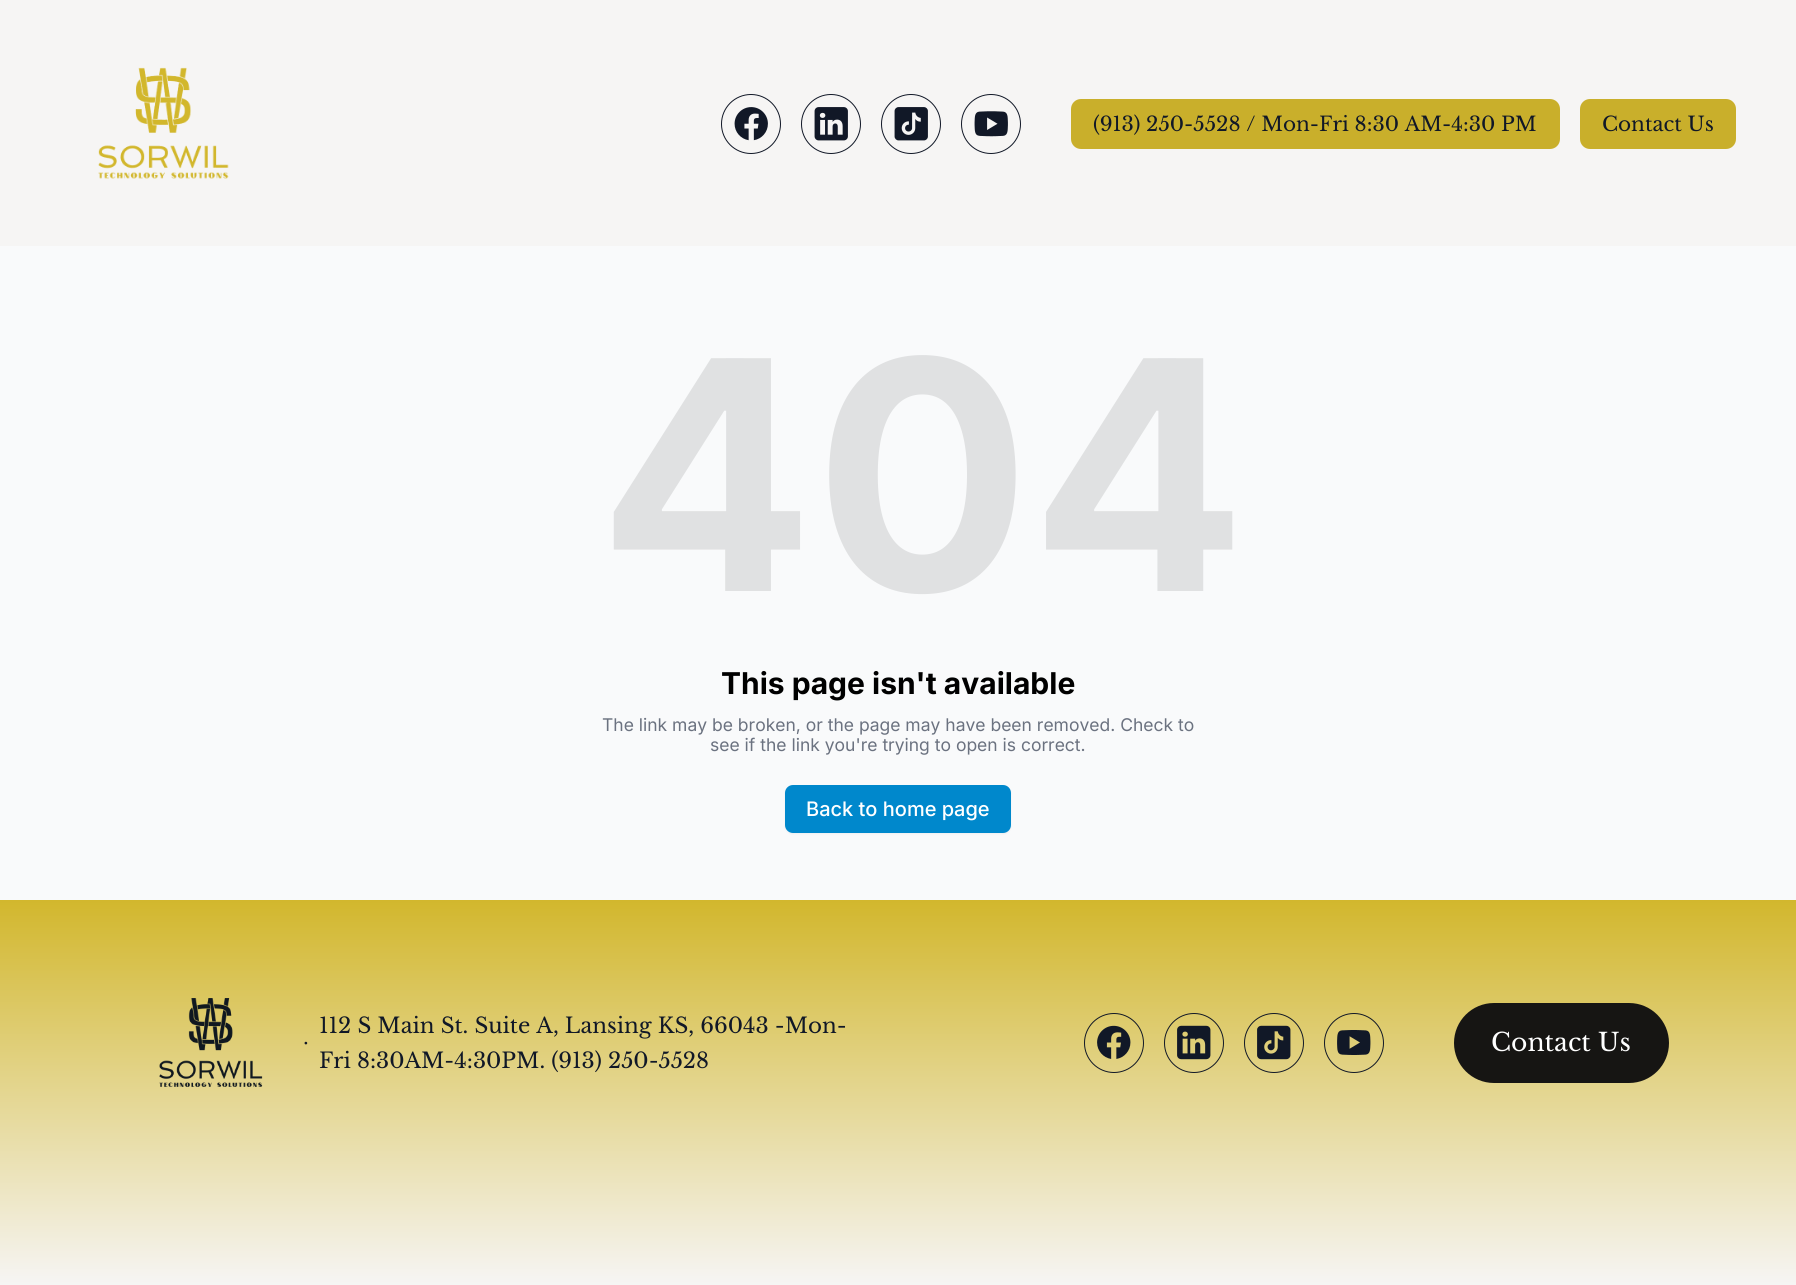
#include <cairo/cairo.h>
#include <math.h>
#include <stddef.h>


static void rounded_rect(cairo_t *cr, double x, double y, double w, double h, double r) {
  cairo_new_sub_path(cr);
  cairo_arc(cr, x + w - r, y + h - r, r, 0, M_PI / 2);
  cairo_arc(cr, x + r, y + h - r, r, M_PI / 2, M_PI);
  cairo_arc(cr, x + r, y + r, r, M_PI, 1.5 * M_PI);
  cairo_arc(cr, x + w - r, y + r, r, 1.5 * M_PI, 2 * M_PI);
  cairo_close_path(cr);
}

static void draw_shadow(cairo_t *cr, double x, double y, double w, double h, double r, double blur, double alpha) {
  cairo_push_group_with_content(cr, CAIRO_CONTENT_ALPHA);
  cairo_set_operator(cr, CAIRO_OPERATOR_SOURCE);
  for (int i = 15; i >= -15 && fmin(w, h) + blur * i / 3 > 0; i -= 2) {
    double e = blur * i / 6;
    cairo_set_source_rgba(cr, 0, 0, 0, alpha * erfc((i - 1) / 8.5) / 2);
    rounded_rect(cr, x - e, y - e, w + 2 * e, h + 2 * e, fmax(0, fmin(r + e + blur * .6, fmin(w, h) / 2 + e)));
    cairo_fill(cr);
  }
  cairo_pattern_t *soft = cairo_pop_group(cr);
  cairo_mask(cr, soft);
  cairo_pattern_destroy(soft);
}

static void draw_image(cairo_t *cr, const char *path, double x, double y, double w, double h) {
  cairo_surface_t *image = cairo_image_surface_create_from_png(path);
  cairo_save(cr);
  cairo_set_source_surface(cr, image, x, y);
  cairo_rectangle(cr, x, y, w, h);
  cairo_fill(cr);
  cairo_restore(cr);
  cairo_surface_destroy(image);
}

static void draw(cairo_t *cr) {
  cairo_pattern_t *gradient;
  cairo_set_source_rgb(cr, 249 / 255.0, 250 / 255.0, 251 / 255.0);
  cairo_paint(cr);
  cairo_set_source_rgb(cr, 246 / 255.0, 245 / 255.0, 244 / 255.0);
  cairo_rectangle(cr, 0, 0, 1796, 246);
  cairo_fill(cr);
  draw_image(cr, "images/1.png", 98, 67, 131, 112);
  cairo_arc(cr, 751, 124, 29.5, 0, 2 * M_PI);
  cairo_set_source_rgb(cr, 17 / 255.0, 24 / 255.0, 39 / 255.0);
  cairo_set_line_width(cr, 1);
  cairo_stroke(cr);
  draw_image(cr, "images/2.png", 734, 107, 34, 34);
  cairo_arc(cr, 831, 124, 29.5, 0, 2 * M_PI);
  cairo_stroke(cr);
  draw_image(cr, "images/3.png", 814, 107, 34, 34);
  cairo_arc(cr, 911, 124, 29.5, 0, 2 * M_PI);
  cairo_stroke(cr);
  draw_image(cr, "images/4.png", 894, 107, 34, 34);
  cairo_arc(cr, 991, 124, 29.5, 0, 2 * M_PI);
  cairo_stroke(cr);
  draw_image(cr, "images/5.png", 974, 111, 34, 26);
  cairo_set_source_rgb(cr, 201 / 255.0, 175 / 255.0, 43 / 255.0);
  rounded_rect(cr, 1072.5, 100.5, 486, 47, 8.5);
  cairo_fill_preserve(cr);
  cairo_set_line_width(cr, 3);
  cairo_stroke(cr);
  rounded_rect(cr, 1581.5, 100.5, 153, 47, 8.5);
  cairo_fill_preserve(cr);
  cairo_stroke(cr);
  cairo_set_source_rgb(cr, 0, 0, 0);
  draw_shadow(cr, 785, 786, 226, 48, 8, 1, 0.05);
  cairo_set_source_rgb(cr, 0, 136 / 255.0, 204 / 255.0);
  rounded_rect(cr, 785, 785, 226, 48, 8);
  cairo_fill(cr);
  gradient = cairo_pattern_create_linear(898, 900, 898, 1285);
  cairo_pattern_add_color_stop_rgba(gradient, 0, 210 / 255.0, 183 / 255.0, 45 / 255.0, 1);
  cairo_pattern_add_color_stop_rgba(gradient, 1, 246 / 255.0, 245 / 255.0, 244 / 255.0, 1);
  cairo_set_source(cr, gradient);
  cairo_pattern_destroy(gradient);
  cairo_rectangle(cr, 0, 900, 1796, 385);
  cairo_fill(cr);
  draw_image(cr, "images/6.png", 159, 998, 104, 89);
  cairo_arc(cr, 1114, 1043, 29.5, 0, 2 * M_PI);
  cairo_set_source_rgb(cr, 17 / 255.0, 24 / 255.0, 39 / 255.0);
  cairo_set_line_width(cr, 1);
  cairo_stroke(cr);
  draw_image(cr, "images/7.png", 1097, 1025, 34, 34);
  cairo_arc(cr, 1194, 1043, 29.5, 0, 2 * M_PI);
  cairo_stroke(cr);
  draw_image(cr, "images/8.png", 1177, 1025, 34, 35);
  cairo_arc(cr, 1274, 1043, 29.5, 0, 2 * M_PI);
  cairo_stroke(cr);
  draw_image(cr, "images/9.png", 1257, 1025, 34, 35);
  cairo_arc(cr, 1354, 1043, 29.5, 0, 2 * M_PI);
  cairo_stroke(cr);
  draw_image(cr, "images/10.png", 1337, 1030, 34, 25);
  cairo_set_source_rgb(cr, 22 / 255.0, 21 / 255.0, 19 / 255.0);
  rounded_rect(cr, 1455.5, 1004.5, 212, 77, 38.5);
  cairo_fill_preserve(cr);
  cairo_set_line_width(cr, 3);
  cairo_stroke(cr);
  cairo_select_font_face(cr, "Libre Baskerville", CAIRO_FONT_SLANT_NORMAL, CAIRO_FONT_WEIGHT_NORMAL);
  cairo_set_font_size(cr, 20);
  cairo_set_source_rgb(cr, 17 / 255.0, 24 / 255.0, 39 / 255.0);
  cairo_move_to(cr, 1093, 131);
  cairo_show_text(cr, "(913) 250-5528 / Mon-Fri 8:30 AM-4:30 PM");
  cairo_move_to(cr, 1602, 131);
  cairo_show_text(cr, "Contact Us");
  cairo_select_font_face(cr, "Inter", CAIRO_FONT_SLANT_NORMAL, CAIRO_FONT_WEIGHT_BOLD);
  cairo_set_font_size(cr, 320);
  cairo_set_source_rgb(cr, 224 / 255.0, 225 / 255.0, 226 / 255.0);
  cairo_move_to(cr, 598, 591);
  cairo_show_text(cr, "404");
  cairo_set_font_size(cr, 30);
  cairo_set_source_rgb(cr, 0, 0, 0);
  cairo_move_to(cr, 721, 694);
  cairo_show_text(cr, "This page isn't available");
  cairo_select_font_face(cr, "Inter", CAIRO_FONT_SLANT_NORMAL, CAIRO_FONT_WEIGHT_NORMAL);
  cairo_set_font_size(cr, 17.5);
  cairo_set_source_rgb(cr, 107 / 255.0, 114 / 255.0, 128 / 255.0);
  cairo_move_to(cr, 602, 731);
  cairo_show_text(cr, "The link may be broken, or the page may have been removed. Check to");
  cairo_move_to(cr, 710, 751);
  cairo_show_text(cr, "see if the link you're trying to open is correct.");
  cairo_select_font_face(cr, "Inter Medium", CAIRO_FONT_SLANT_NORMAL, CAIRO_FONT_WEIGHT_NORMAL);
  cairo_set_font_size(cr, 20);
  cairo_set_source_rgb(cr, 1, 1, 1);
  cairo_move_to(cr, 806, 816);
  cairo_show_text(cr, "Back to home page");
  cairo_select_font_face(cr, "Inter", CAIRO_FONT_SLANT_NORMAL, CAIRO_FONT_WEIGHT_NORMAL);
  cairo_set_source_rgb(cr, 17 / 255.0, 24 / 255.0, 39 / 255.0);
  cairo_move_to(cr, 303, 1050);
  cairo_show_text(cr, "·");
  cairo_select_font_face(cr, "Libre Baskerville", CAIRO_FONT_SLANT_NORMAL, CAIRO_FONT_WEIGHT_NORMAL);
  cairo_set_font_size(cr, 21.4);
  cairo_move_to(cr, 319, 1033);
  cairo_show_text(cr, "112 S Main St. Suite A, Lansing KS, 66043 -Mon-");
  cairo_move_to(cr, 319, 1068);
  cairo_show_text(cr, "Fri 8:30AM-4:30PM. (913) 250-5528");
  cairo_set_font_size(cr, 25);
  cairo_set_source_rgb(cr, 1, 1, 1);
  cairo_move_to(cr, 1491, 1051);
  cairo_show_text(cr, "Contact Us");
}

int main(void) {
  cairo_surface_t *surface = cairo_image_surface_create(CAIRO_FORMAT_RGB24, 1796, 1285);
  cairo_t *cr = cairo_create(surface);
  cairo_font_options_t *options = cairo_font_options_create();
  cairo_font_options_set_hint_metrics(options, CAIRO_HINT_METRICS_OFF);
  cairo_font_options_set_hint_style(options, CAIRO_HINT_STYLE_NONE);
  cairo_set_font_options(cr, options);
  cairo_set_miter_limit(cr, 4);
  draw(cr);
  cairo_surface_write_to_png(surface, "out.png");
  cairo_font_options_destroy(options);
  cairo_destroy(cr);
  cairo_surface_destroy(surface);
  return 0;
}
